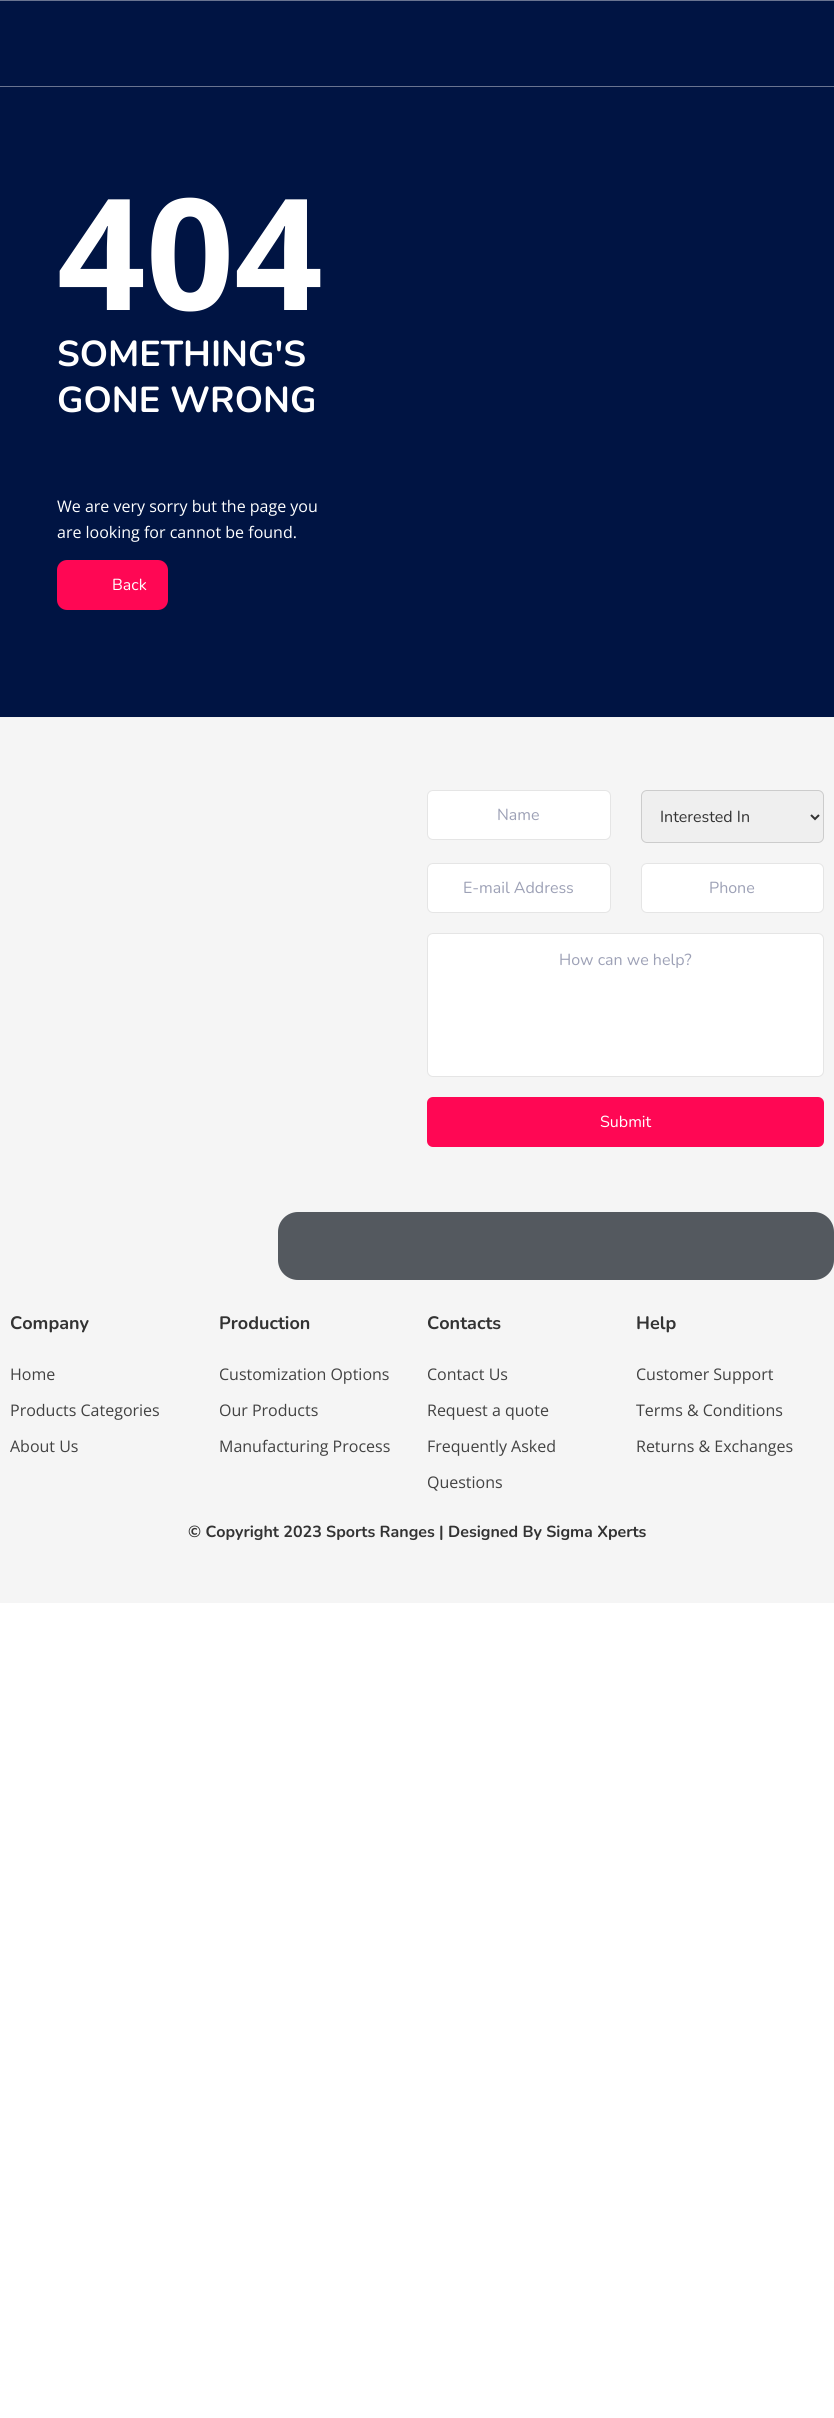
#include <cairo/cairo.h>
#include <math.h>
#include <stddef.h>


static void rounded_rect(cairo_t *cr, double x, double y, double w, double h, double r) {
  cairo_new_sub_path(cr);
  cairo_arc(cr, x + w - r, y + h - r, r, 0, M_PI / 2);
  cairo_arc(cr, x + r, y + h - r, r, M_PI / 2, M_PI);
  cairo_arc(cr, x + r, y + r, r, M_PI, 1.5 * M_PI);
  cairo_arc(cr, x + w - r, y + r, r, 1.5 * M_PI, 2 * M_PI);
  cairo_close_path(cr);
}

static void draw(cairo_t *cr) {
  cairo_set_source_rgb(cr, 1, 1, 1);
  cairo_paint(cr);
  cairo_set_source_rgb(cr, 245 / 255.0, 245 / 255.0, 245 / 255.0);
  cairo_rectangle(cr, 0, 718, 834, 885);
  cairo_fill(cr);
  cairo_set_source_rgb(cr, 105 / 255.0, 116 / 255.0, 144 / 255.0);
  cairo_rectangle(cr, 0, 0, 834, 1);
  cairo_fill(cr);
  cairo_set_source_rgb(cr, 0, 20 / 255.0, 67 / 255.0);
  cairo_rectangle(cr, 0, 1, 834, 716);
  cairo_fill(cr);
  cairo_set_source_rgb(cr, 105 / 255.0, 116 / 255.0, 144 / 255.0);
  cairo_rectangle(cr, 0, 86, 834, 1);
  cairo_fill(cr);
  cairo_set_source_rgb(cr, 242 / 255.0, 242 / 255.0, 242 / 255.0);
  cairo_rectangle(cr, 0, 717, 834, 1);
  cairo_fill(cr);
  cairo_set_source_rgb(cr, 1, 7 / 255.0, 84 / 255.0);
  rounded_rect(cr, 57, 560, 111, 50, 10);
  cairo_fill(cr);
  cairo_set_source_rgb(cr, 1, 1, 1);
  rounded_rect(cr, 427.5, 790.5, 183, 49, 5.5);
  cairo_fill_preserve(cr);
  cairo_set_source_rgb(cr, 229 / 255.0, 229 / 255.0, 229 / 255.0);
  cairo_set_line_width(cr, 1);
  cairo_stroke(cr);
  cairo_set_source_rgb(cr, 239 / 255.0, 239 / 255.0, 239 / 255.0);
  rounded_rect(cr, 641.5, 790.5, 182, 52, 5.5);
  cairo_fill_preserve(cr);
  cairo_set_source_rgb(cr, 204 / 255.0, 204 / 255.0, 204 / 255.0);
  cairo_stroke(cr);
  cairo_new_path(cr);
  cairo_move_to(cr, 811, 815);
  cairo_line_to(cr, 815, 819);
  cairo_line_to(cr, 819, 815);
  cairo_set_source_rgb(cr, 51 / 255.0, 51 / 255.0, 51 / 255.0);
  cairo_set_line_width(cr, 2);
  cairo_stroke(cr);
  cairo_set_source_rgb(cr, 1, 1, 1);
  rounded_rect(cr, 427.5, 863.5, 183, 49, 5.5);
  cairo_fill_preserve(cr);
  cairo_set_source_rgb(cr, 229 / 255.0, 229 / 255.0, 229 / 255.0);
  cairo_set_line_width(cr, 1);
  cairo_stroke(cr);
  cairo_set_source_rgb(cr, 1, 1, 1);
  rounded_rect(cr, 641.5, 863.5, 182, 49, 5.5);
  cairo_fill_preserve(cr);
  cairo_set_source_rgb(cr, 229 / 255.0, 229 / 255.0, 229 / 255.0);
  cairo_stroke(cr);
  cairo_set_source_rgb(cr, 1, 1, 1);
  rounded_rect(cr, 427.5, 933.5, 396, 143, 5.5);
  cairo_fill_preserve(cr);
  cairo_set_source_rgb(cr, 229 / 255.0, 229 / 255.0, 229 / 255.0);
  cairo_stroke(cr);
  cairo_set_source_rgb(cr, 1, 7 / 255.0, 84 / 255.0);
  rounded_rect(cr, 427, 1097, 397, 50, 6);
  cairo_fill(cr);
  cairo_set_source_rgb(cr, 84 / 255.0, 89 / 255.0, 95 / 255.0);
  rounded_rect(cr, 278, 1212, 556, 68, 20);
  cairo_fill(cr);
  cairo_select_font_face(cr, "Open Sans", CAIRO_FONT_SLANT_NORMAL, CAIRO_FONT_WEIGHT_BOLD);
  cairo_set_font_size(cr, 155);
  cairo_set_source_rgb(cr, 1, 1, 1);
  cairo_move_to(cr, 57, 310);
  cairo_show_text(cr, "404");
  cairo_select_font_face(cr, "Nunito", CAIRO_FONT_SLANT_NORMAL, CAIRO_FONT_WEIGHT_BOLD);
  cairo_set_font_size(cr, 36);
  cairo_move_to(cr, 57, 366);
  cairo_show_text(cr, "SOMETHING'S");
  cairo_move_to(cr, 57, 412);
  cairo_show_text(cr, "GONE WRONG");
  cairo_select_font_face(cr, "Open Sans", CAIRO_FONT_SLANT_NORMAL, CAIRO_FONT_WEIGHT_NORMAL);
  cairo_set_font_size(cr, 16);
  cairo_move_to(cr, 57, 512);
  cairo_show_text(cr, "We are very sorry but the page you");
  cairo_move_to(cr, 57, 538);
  cairo_show_text(cr, "are looking for cannot be found.");
  cairo_select_font_face(cr, "Nunito", CAIRO_FONT_SLANT_NORMAL, CAIRO_FONT_WEIGHT_NORMAL);
  cairo_move_to(cr, 112, 590);
  cairo_show_text(cr, "Back");
  cairo_set_source_rgb(cr, 157 / 255.0, 161 / 255.0, 182 / 255.0);
  cairo_move_to(cr, 497, 820);
  cairo_show_text(cr, "Name");
  cairo_set_source_rgb(cr, 51 / 255.0, 51 / 255.0, 51 / 255.0);
  cairo_move_to(cr, 660, 822);
  cairo_show_text(cr, "Interested In");
  cairo_set_source_rgb(cr, 157 / 255.0, 161 / 255.0, 182 / 255.0);
  cairo_move_to(cr, 463, 893);
  cairo_show_text(cr, "E-mail Address");
  cairo_move_to(cr, 709, 893);
  cairo_show_text(cr, "Phone");
  cairo_move_to(cr, 559, 965);
  cairo_show_text(cr, "How can we help?");
  cairo_set_source_rgb(cr, 1, 1, 1);
  cairo_move_to(cr, 600, 1127);
  cairo_show_text(cr, "Submit");
  cairo_select_font_face(cr, "Nunito", CAIRO_FONT_SLANT_NORMAL, CAIRO_FONT_WEIGHT_BOLD);
  cairo_set_font_size(cr, 18);
  cairo_set_source_rgb(cr, 51 / 255.0, 51 / 255.0, 51 / 255.0);
  cairo_move_to(cr, 10, 1329);
  cairo_show_text(cr, "Company");
  cairo_select_font_face(cr, "Open Sans", CAIRO_FONT_SLANT_NORMAL, CAIRO_FONT_WEIGHT_NORMAL);
  cairo_set_font_size(cr, 16);
  cairo_set_source_rgb(cr, 66 / 255.0, 66 / 255.0, 66 / 255.0);
  cairo_move_to(cr, 10, 1380);
  cairo_show_text(cr, "Home");
  cairo_move_to(cr, 10, 1416);
  cairo_show_text(cr, "Products Categories");
  cairo_move_to(cr, 10, 1452);
  cairo_show_text(cr, "About Us");
  cairo_select_font_face(cr, "Nunito", CAIRO_FONT_SLANT_NORMAL, CAIRO_FONT_WEIGHT_BOLD);
  cairo_set_font_size(cr, 18);
  cairo_set_source_rgb(cr, 51 / 255.0, 51 / 255.0, 51 / 255.0);
  cairo_move_to(cr, 219, 1329);
  cairo_show_text(cr, "Production");
  cairo_select_font_face(cr, "Open Sans", CAIRO_FONT_SLANT_NORMAL, CAIRO_FONT_WEIGHT_NORMAL);
  cairo_set_font_size(cr, 16);
  cairo_set_source_rgb(cr, 66 / 255.0, 66 / 255.0, 66 / 255.0);
  cairo_move_to(cr, 219, 1380);
  cairo_show_text(cr, "Customization Options");
  cairo_move_to(cr, 219, 1416);
  cairo_show_text(cr, "Our Products");
  cairo_move_to(cr, 219, 1452);
  cairo_show_text(cr, "Manufacturing Process");
  cairo_select_font_face(cr, "Nunito", CAIRO_FONT_SLANT_NORMAL, CAIRO_FONT_WEIGHT_BOLD);
  cairo_set_font_size(cr, 18);
  cairo_set_source_rgb(cr, 51 / 255.0, 51 / 255.0, 51 / 255.0);
  cairo_move_to(cr, 427, 1329);
  cairo_show_text(cr, "Contacts");
  cairo_select_font_face(cr, "Open Sans", CAIRO_FONT_SLANT_NORMAL, CAIRO_FONT_WEIGHT_NORMAL);
  cairo_set_font_size(cr, 16);
  cairo_set_source_rgb(cr, 66 / 255.0, 66 / 255.0, 66 / 255.0);
  cairo_move_to(cr, 427, 1380);
  cairo_show_text(cr, "Contact Us");
  cairo_move_to(cr, 427, 1416);
  cairo_show_text(cr, "Request a quote");
  cairo_move_to(cr, 427, 1452);
  cairo_show_text(cr, "Frequently Asked");
  cairo_move_to(cr, 427, 1488);
  cairo_show_text(cr, "Questions");
  cairo_select_font_face(cr, "Nunito", CAIRO_FONT_SLANT_NORMAL, CAIRO_FONT_WEIGHT_BOLD);
  cairo_set_font_size(cr, 18);
  cairo_set_source_rgb(cr, 51 / 255.0, 51 / 255.0, 51 / 255.0);
  cairo_move_to(cr, 636, 1329);
  cairo_show_text(cr, "Help");
  cairo_select_font_face(cr, "Open Sans", CAIRO_FONT_SLANT_NORMAL, CAIRO_FONT_WEIGHT_NORMAL);
  cairo_set_font_size(cr, 16);
  cairo_set_source_rgb(cr, 66 / 255.0, 66 / 255.0, 66 / 255.0);
  cairo_move_to(cr, 636, 1380);
  cairo_show_text(cr, "Customer Support");
  cairo_move_to(cr, 636, 1416);
  cairo_show_text(cr, "Terms & Conditions");
  cairo_move_to(cr, 636, 1452);
  cairo_show_text(cr, "Returns & Exchanges");
  cairo_select_font_face(cr, "Nunito", CAIRO_FONT_SLANT_NORMAL, CAIRO_FONT_WEIGHT_BOLD);
  cairo_set_source_rgb(cr, 51 / 255.0, 51 / 255.0, 51 / 255.0);
  cairo_move_to(cr, 188, 1537);
  cairo_show_text(cr, "© Copyright 2023 Sports Ranges | Designed By Sigma Xperts");
}

int main(void) {
  cairo_surface_t *surface = cairo_image_surface_create(CAIRO_FORMAT_RGB24, 834, 2418);
  cairo_t *cr = cairo_create(surface);
  cairo_font_options_t *options = cairo_font_options_create();
  cairo_font_options_set_hint_metrics(options, CAIRO_HINT_METRICS_OFF);
  cairo_font_options_set_hint_style(options, CAIRO_HINT_STYLE_NONE);
  cairo_set_font_options(cr, options);
  cairo_set_miter_limit(cr, 4);
  draw(cr);
  cairo_surface_write_to_png(surface, "out.png");
  cairo_font_options_destroy(options);
  cairo_destroy(cr);
  cairo_surface_destroy(surface);
  return 0;
}
